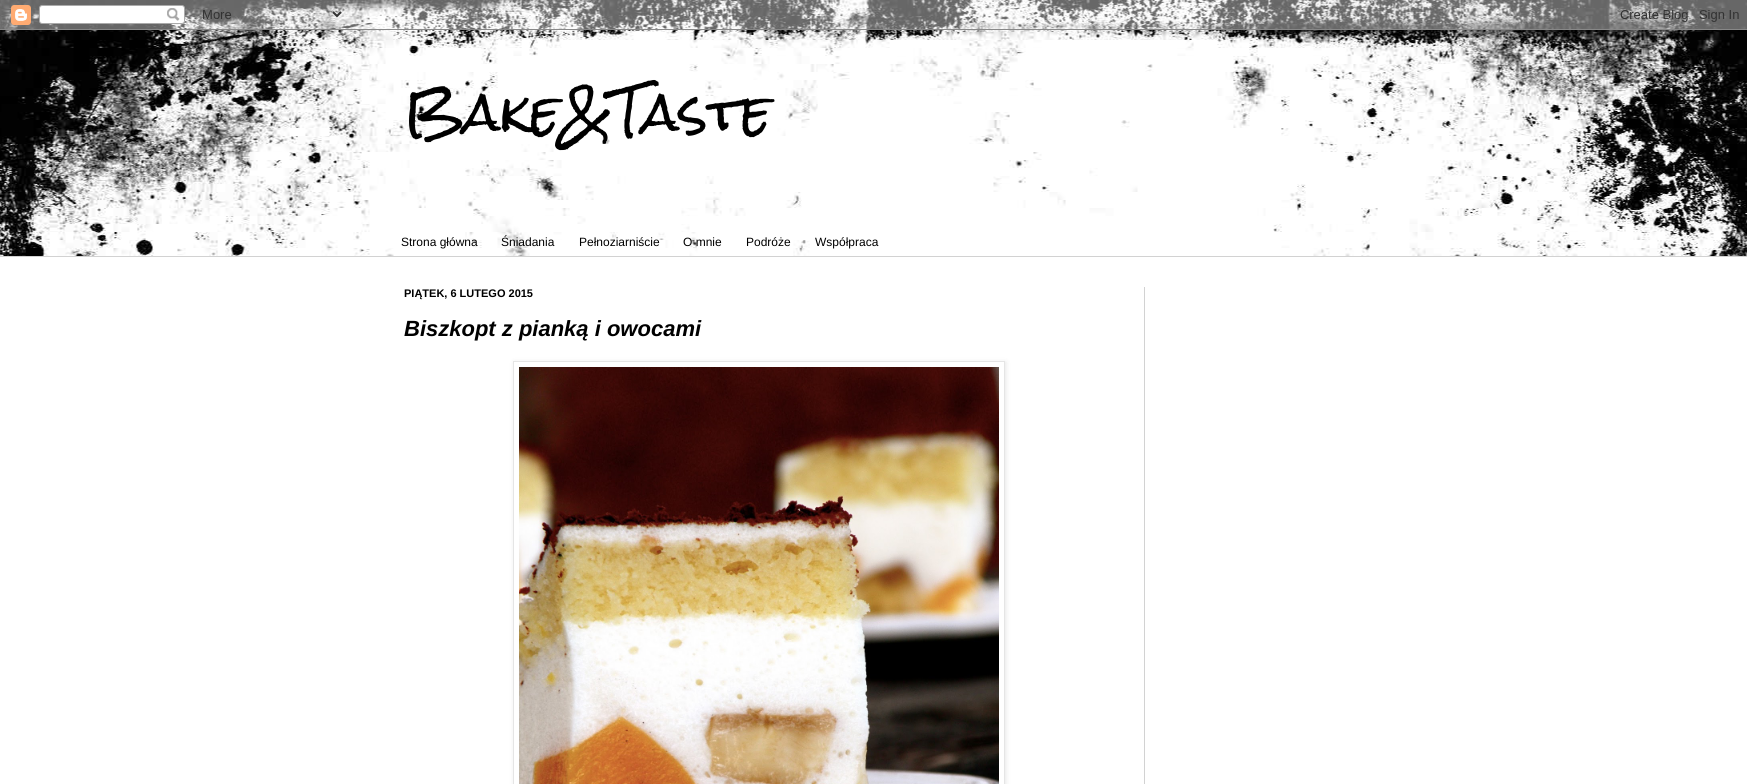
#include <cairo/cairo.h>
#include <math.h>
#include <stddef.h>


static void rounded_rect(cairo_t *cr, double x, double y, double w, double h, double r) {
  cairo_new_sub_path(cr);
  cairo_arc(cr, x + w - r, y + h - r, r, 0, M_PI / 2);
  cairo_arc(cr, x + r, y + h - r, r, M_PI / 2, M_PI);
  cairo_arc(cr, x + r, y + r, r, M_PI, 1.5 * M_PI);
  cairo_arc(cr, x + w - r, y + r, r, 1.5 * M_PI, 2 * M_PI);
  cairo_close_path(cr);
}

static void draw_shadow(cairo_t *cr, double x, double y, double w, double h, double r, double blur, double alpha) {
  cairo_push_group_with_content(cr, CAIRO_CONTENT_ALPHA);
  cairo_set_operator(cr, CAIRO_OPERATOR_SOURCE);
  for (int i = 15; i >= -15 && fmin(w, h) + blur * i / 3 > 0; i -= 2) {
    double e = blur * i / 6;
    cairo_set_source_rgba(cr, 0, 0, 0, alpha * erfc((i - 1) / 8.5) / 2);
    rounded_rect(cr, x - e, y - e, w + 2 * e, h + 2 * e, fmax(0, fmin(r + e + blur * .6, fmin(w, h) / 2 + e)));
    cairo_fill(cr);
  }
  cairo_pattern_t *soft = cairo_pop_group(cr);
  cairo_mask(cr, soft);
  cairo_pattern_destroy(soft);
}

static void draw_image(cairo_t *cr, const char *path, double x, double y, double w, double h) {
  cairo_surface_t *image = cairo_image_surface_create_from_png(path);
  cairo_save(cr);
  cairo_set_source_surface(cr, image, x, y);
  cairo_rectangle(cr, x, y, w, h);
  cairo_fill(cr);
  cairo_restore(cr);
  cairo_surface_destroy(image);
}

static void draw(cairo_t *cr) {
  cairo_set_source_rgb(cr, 1, 1, 1);
  cairo_paint(cr);
  draw_image(cr, "images/1.png", 0, 0, 1747, 256);
  draw_image(cr, "images/2.png", 0, 0, 1747, 30);
  cairo_set_source_rgb(cr, 210 / 255.0, 210 / 255.0, 210 / 255.0);
  cairo_rectangle(cr, 0, 256, 1747, 1);
  cairo_fill(cr);
  cairo_save(cr);
  cairo_set_fill_rule(cr, CAIRO_FILL_RULE_EVEN_ODD);
  cairo_new_path(cr);
  cairo_move_to(cr, 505, 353);
  cairo_line_to(cr, 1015, 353);
  cairo_line_to(cr, 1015, 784);
  cairo_line_to(cr, 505, 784);
  cairo_close_path(cr);
  cairo_move_to(cr, 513, 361);
  cairo_line_to(cr, 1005, 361);
  cairo_line_to(cr, 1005, 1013);
  cairo_line_to(cr, 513, 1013);
  cairo_close_path(cr);
  cairo_clip(cr);
  cairo_set_source_rgb(cr, 0, 0, 0);
  draw_shadow(cr, 514, 362, 492, 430, 0, 2.5, 0.1);
  cairo_restore(cr);
  cairo_rectangle(cr, 513.5, 361.5, 491, 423);
  cairo_set_source_rgb(cr, 229 / 255.0, 229 / 255.0, 229 / 255.0);
  cairo_set_line_width(cr, 1);
  cairo_stroke(cr);
  draw_image(cr, "images/3.png", 519, 367, 480, 417);
  cairo_set_source_rgb(cr, 210 / 255.0, 210 / 255.0, 210 / 255.0);
  cairo_rectangle(cr, 1144, 287, 1, 497);
  cairo_fill(cr);
  cairo_select_font_face(cr, "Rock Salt", CAIRO_FONT_SLANT_NORMAL, CAIRO_FONT_WEIGHT_NORMAL);
  cairo_set_font_size(cr, 50);
  cairo_set_source_rgb(cr, 0, 0, 0);
  cairo_move_to(cr, 404, 132);
  cairo_show_text(cr, "Bake&Taste");
  cairo_select_font_face(cr, "Liberation Sans", CAIRO_FONT_SLANT_NORMAL, CAIRO_FONT_WEIGHT_NORMAL);
  cairo_set_font_size(cr, 12);
  cairo_move_to(cr, 401, 246);
  cairo_show_text(cr, "Strona główna");
  cairo_move_to(cr, 501, 246);
  cairo_show_text(cr, "Śniadania");
  cairo_move_to(cr, 579, 246);
  cairo_show_text(cr, "Pełnoziarniście");
  cairo_move_to(cr, 683, 246);
  cairo_show_text(cr, "O mnie");
  cairo_move_to(cr, 746, 246);
  cairo_show_text(cr, "Podróże");
  cairo_move_to(cr, 815, 246);
  cairo_show_text(cr, "Współpraca");
  cairo_select_font_face(cr, "Liberation Sans", CAIRO_FONT_SLANT_NORMAL, CAIRO_FONT_WEIGHT_BOLD);
  cairo_set_font_size(cr, 11);
  cairo_move_to(cr, 404, 297);
  cairo_show_text(cr, "PIĄTEK, 6 LUTEGO 2015");
  cairo_select_font_face(cr, "Liberation Sans", CAIRO_FONT_SLANT_ITALIC, CAIRO_FONT_WEIGHT_BOLD);
  cairo_set_font_size(cr, 22);
  cairo_move_to(cr, 404, 336);
  cairo_show_text(cr, "Biszkopt z pianką i owocami");
}

int main(void) {
  cairo_surface_t *surface = cairo_image_surface_create(CAIRO_FORMAT_RGB24, 1747, 784);
  cairo_t *cr = cairo_create(surface);
  cairo_font_options_t *options = cairo_font_options_create();
  cairo_font_options_set_hint_metrics(options, CAIRO_HINT_METRICS_OFF);
  cairo_font_options_set_hint_style(options, CAIRO_HINT_STYLE_NONE);
  cairo_set_font_options(cr, options);
  cairo_set_miter_limit(cr, 4);
  draw(cr);
  cairo_surface_write_to_png(surface, "out.png");
  cairo_font_options_destroy(options);
  cairo_destroy(cr);
  cairo_surface_destroy(surface);
  return 0;
}
